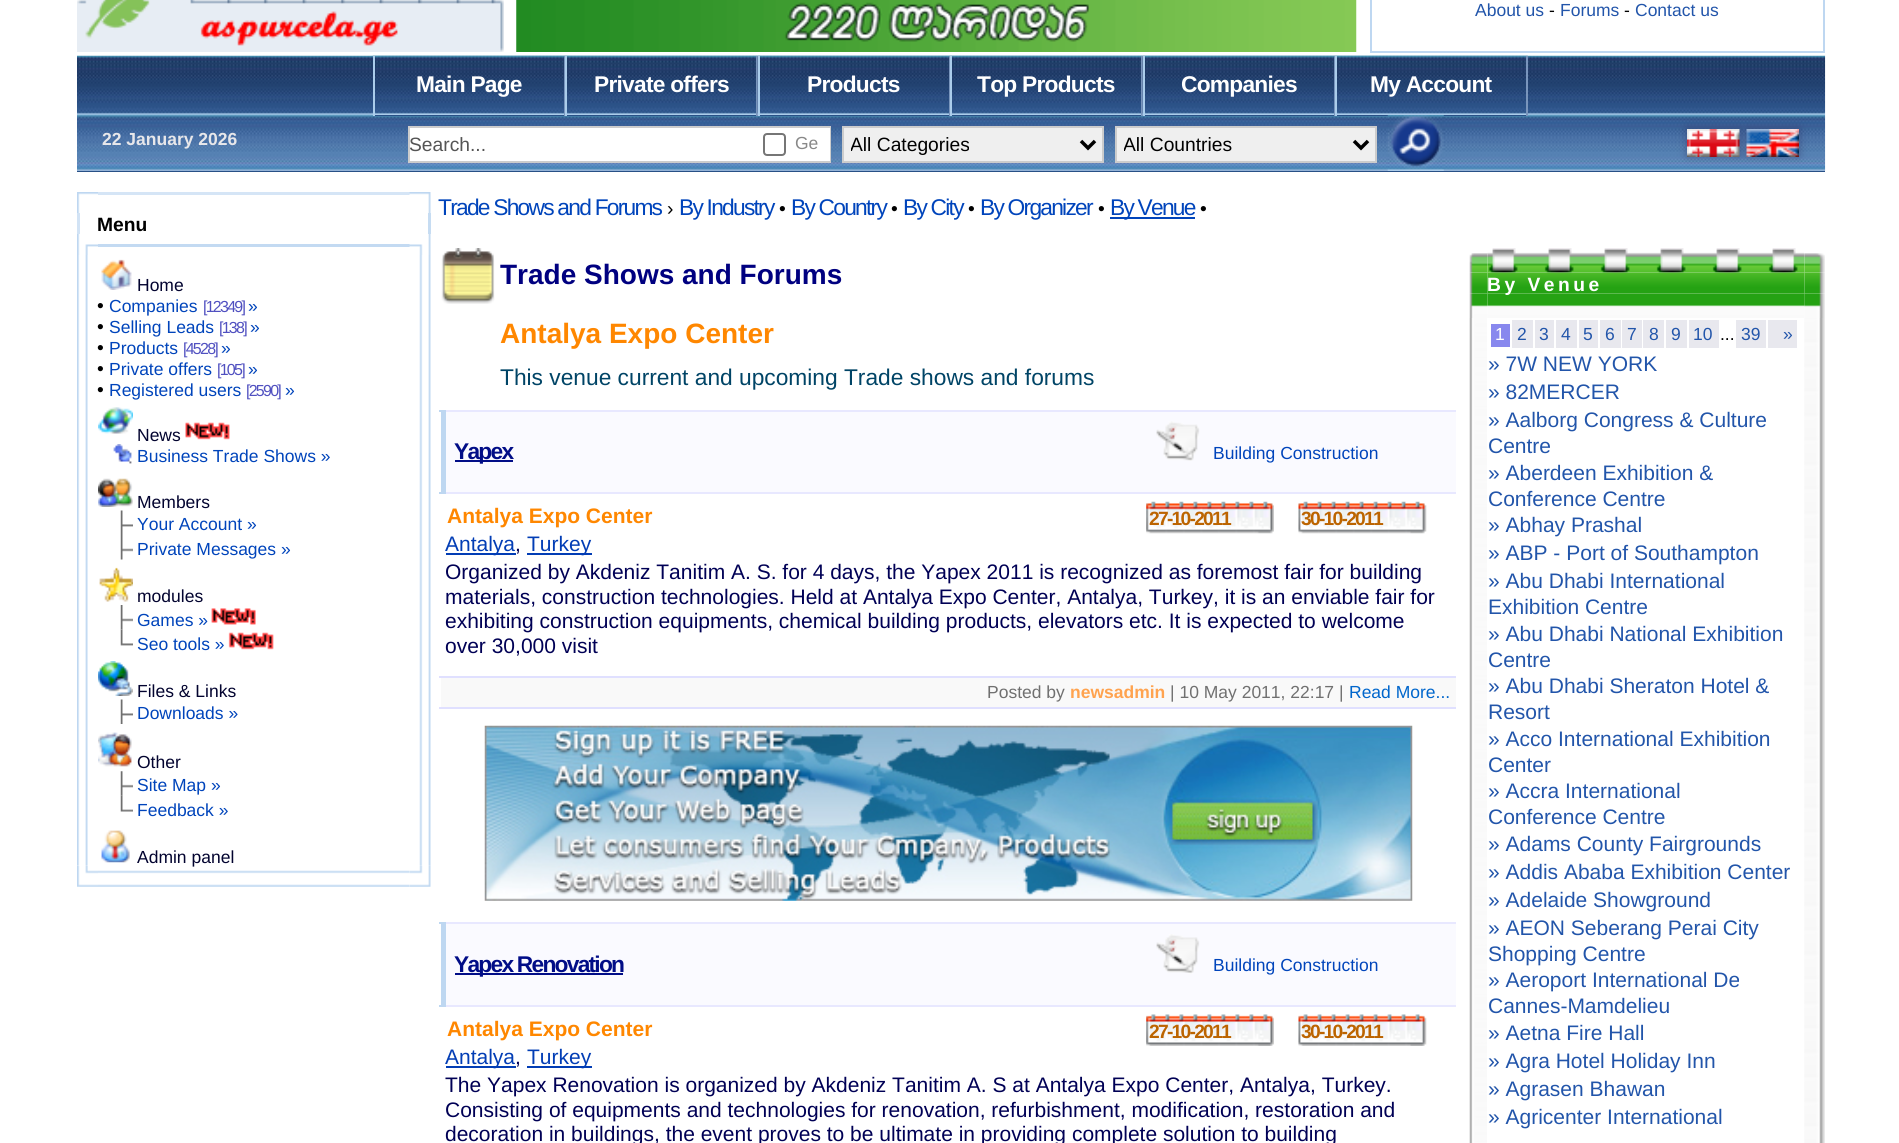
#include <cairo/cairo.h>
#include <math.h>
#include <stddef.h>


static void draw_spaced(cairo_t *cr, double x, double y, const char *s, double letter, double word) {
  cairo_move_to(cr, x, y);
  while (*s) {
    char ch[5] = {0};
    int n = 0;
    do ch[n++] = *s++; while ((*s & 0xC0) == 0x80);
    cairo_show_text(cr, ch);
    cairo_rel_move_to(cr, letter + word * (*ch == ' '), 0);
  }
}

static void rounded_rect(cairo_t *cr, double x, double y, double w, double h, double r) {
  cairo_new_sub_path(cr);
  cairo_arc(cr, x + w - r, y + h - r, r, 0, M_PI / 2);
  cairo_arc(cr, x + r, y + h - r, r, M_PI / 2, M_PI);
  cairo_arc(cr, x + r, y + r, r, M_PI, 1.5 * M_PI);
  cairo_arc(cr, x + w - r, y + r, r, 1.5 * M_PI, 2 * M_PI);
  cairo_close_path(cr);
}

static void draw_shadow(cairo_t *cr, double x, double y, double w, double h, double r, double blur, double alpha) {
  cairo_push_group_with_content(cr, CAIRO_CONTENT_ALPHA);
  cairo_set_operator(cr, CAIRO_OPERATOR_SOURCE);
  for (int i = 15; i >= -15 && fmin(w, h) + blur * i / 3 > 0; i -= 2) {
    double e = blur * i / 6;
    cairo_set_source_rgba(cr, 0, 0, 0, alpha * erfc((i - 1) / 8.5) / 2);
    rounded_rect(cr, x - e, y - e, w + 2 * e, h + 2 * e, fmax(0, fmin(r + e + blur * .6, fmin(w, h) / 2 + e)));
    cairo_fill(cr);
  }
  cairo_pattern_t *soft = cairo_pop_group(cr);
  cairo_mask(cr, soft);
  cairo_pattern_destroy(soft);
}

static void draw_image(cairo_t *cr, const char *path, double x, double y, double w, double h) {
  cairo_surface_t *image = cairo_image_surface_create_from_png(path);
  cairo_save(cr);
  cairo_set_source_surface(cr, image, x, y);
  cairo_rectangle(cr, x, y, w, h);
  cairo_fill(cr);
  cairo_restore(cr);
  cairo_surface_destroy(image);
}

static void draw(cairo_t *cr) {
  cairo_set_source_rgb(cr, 1, 1, 1);
  cairo_paint(cr);
  draw_image(cr, "images/1.png", 77, 0, 427, 52);
  draw_image(cr, "images/2.png", 516, 0, 841, 52);
  cairo_rectangle(cr, 1371, -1, 453, 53);
  cairo_set_source_rgb(cr, 190 / 255.0, 215 / 255.0, 241 / 255.0);
  cairo_stroke(cr);
  draw_image(cr, "images/12.png", 77, 55, 1749, 116);
  cairo_set_source_rgb(cr, 40 / 255.0, 80 / 255.0, 134 / 255.0);
  cairo_rectangle(cr, 375, 115, 189, 1);
  cairo_fill(cr);
  draw_image(cr, "images/3.png", 372, 55, 194, 60);
  cairo_set_source_rgb(cr, 121 / 255.0, 149 / 255.0, 188 / 255.0);
  cairo_rectangle(cr, 564, 56, 1, 60);
  cairo_fill(cr);
  cairo_set_source_rgb(cr, 171 / 255.0, 205 / 255.0, 235 / 255.0);
  cairo_rectangle(cr, 373, 56, 2, 60);
  cairo_fill(cr);
  cairo_set_source_rgb(cr, 40 / 255.0, 80 / 255.0, 134 / 255.0);
  cairo_rectangle(cr, 567, 115, 189, 1);
  cairo_fill(cr);
  draw_image(cr, "images/4.png", 565, 55, 193, 60);
  cairo_set_source_rgb(cr, 121 / 255.0, 149 / 255.0, 188 / 255.0);
  cairo_rectangle(cr, 756, 56, 2, 60);
  cairo_fill(cr);
  cairo_set_source_rgb(cr, 171 / 255.0, 205 / 255.0, 235 / 255.0);
  cairo_rectangle(cr, 565, 56, 2, 60);
  cairo_fill(cr);
  cairo_set_source_rgb(cr, 40 / 255.0, 80 / 255.0, 134 / 255.0);
  cairo_rectangle(cr, 760, 115, 189, 1);
  cairo_fill(cr);
  draw_image(cr, "images/5.png", 757, 55, 194, 60);
  cairo_set_source_rgb(cr, 121 / 255.0, 149 / 255.0, 188 / 255.0);
  cairo_rectangle(cr, 949, 56, 1, 60);
  cairo_fill(cr);
  cairo_set_source_rgb(cr, 171 / 255.0, 205 / 255.0, 235 / 255.0);
  cairo_rectangle(cr, 758, 56, 2, 60);
  cairo_fill(cr);
  cairo_set_source_rgb(cr, 40 / 255.0, 80 / 255.0, 134 / 255.0);
  cairo_rectangle(cr, 952, 115, 189, 1);
  cairo_fill(cr);
  draw_image(cr, "images/6.png", 950, 55, 193, 60);
  cairo_set_source_rgb(cr, 121 / 255.0, 149 / 255.0, 188 / 255.0);
  cairo_rectangle(cr, 1141, 56, 2, 60);
  cairo_fill(cr);
  cairo_set_source_rgb(cr, 171 / 255.0, 205 / 255.0, 235 / 255.0);
  cairo_rectangle(cr, 950, 56, 2, 60);
  cairo_fill(cr);
  cairo_set_source_rgb(cr, 40 / 255.0, 80 / 255.0, 134 / 255.0);
  cairo_rectangle(cr, 1145, 115, 189, 1);
  cairo_fill(cr);
  draw_image(cr, "images/7.png", 1142, 55, 194, 60);
  cairo_set_source_rgb(cr, 121 / 255.0, 149 / 255.0, 188 / 255.0);
  cairo_rectangle(cr, 1334, 56, 1, 60);
  cairo_fill(cr);
  cairo_set_source_rgb(cr, 171 / 255.0, 205 / 255.0, 235 / 255.0);
  cairo_rectangle(cr, 1143, 56, 2, 60);
  cairo_fill(cr);
  cairo_set_source_rgb(cr, 40 / 255.0, 80 / 255.0, 134 / 255.0);
  cairo_rectangle(cr, 1337, 115, 189, 1);
  cairo_fill(cr);
  draw_image(cr, "images/8.png", 1335, 55, 193, 60);
  cairo_set_source_rgb(cr, 121 / 255.0, 149 / 255.0, 188 / 255.0);
  cairo_rectangle(cr, 1526, 56, 2, 60);
  cairo_fill(cr);
  cairo_set_source_rgb(cr, 171 / 255.0, 205 / 255.0, 235 / 255.0);
  cairo_rectangle(cr, 1335, 56, 2, 60);
  cairo_fill(cr);
  cairo_set_source_rgb(cr, 1, 1, 1);
  cairo_rectangle(cr, 410, 128, 420, 33);
  cairo_fill(cr);
  cairo_set_source_rgb(cr, 204 / 255.0, 204 / 255.0, 204 / 255.0);
  cairo_rectangle(cr, 751, 126, 80, 2);
  cairo_fill(cr);
  cairo_rectangle(cr, 830, 126, 1, 37);
  cairo_fill(cr);
  cairo_rectangle(cr, 751, 161, 80, 2);
  cairo_fill(cr);
  cairo_save(cr);
  cairo_rectangle(cr, 408, 126, 343, 37);
  cairo_clip(cr);
  cairo_rectangle(cr, 409, 127, 344, 35);
  cairo_stroke(cr);
  cairo_restore(cr);
  rounded_rect(cr, 764, 134, 21, 21, 3);
  cairo_set_source_rgb(cr, 118 / 255.0, 118 / 255.0, 118 / 255.0);
  cairo_stroke(cr);
  cairo_set_source_rgb(cr, 239 / 255.0, 239 / 255.0, 239 / 255.0);
  cairo_rectangle(cr, 843, 127, 260, 35);
  cairo_fill_preserve(cr);
  cairo_set_source_rgb(cr, 204 / 255.0, 204 / 255.0, 204 / 255.0);
  cairo_stroke(cr);
  cairo_new_path(cr);
  cairo_move_to(cr, 1081, 141);
  cairo_line_to(cr, 1088, 148);
  cairo_line_to(cr, 1095, 141);
  cairo_set_source_rgb(cr, 0, 0, 0);
  cairo_set_line_width(cr, 3.5);
  cairo_stroke(cr);
  cairo_set_source_rgb(cr, 239 / 255.0, 239 / 255.0, 239 / 255.0);
  cairo_rectangle(cr, 1116, 127, 260, 35);
  cairo_fill_preserve(cr);
  cairo_set_source_rgb(cr, 204 / 255.0, 204 / 255.0, 204 / 255.0);
  cairo_set_line_width(cr, 2);
  cairo_stroke(cr);
  cairo_new_path(cr);
  cairo_move_to(cr, 1354, 141);
  cairo_line_to(cr, 1361, 148);
  cairo_line_to(cr, 1368, 141);
  cairo_set_source_rgb(cr, 0, 0, 0);
  cairo_set_line_width(cr, 3.5);
  cairo_stroke(cr);
  draw_image(cr, "images/9.png", 1387, 115, 57, 56);
  cairo_set_source_rgb(cr, 50 / 255.0, 50 / 255.0, 100 / 255.0);
  draw_shadow(cr, 1747, 128, 52, 28, 0, 4.5, 0.5);
  draw_image(cr, "images/11.png", 1746, 129, 53, 28);
  draw_shadow(cr, 1687, 128, 53, 28, 0, 4.5, 0.5);
  draw_image(cr, "images/10.png", 1687, 129, 53, 28);
  cairo_set_source_rgb(cr, 40 / 255.0, 80 / 255.0, 134 / 255.0);
  cairo_rectangle(cr, 77, 171, 1748, 1);
  cairo_fill(cr);
  draw_image(cr, "images/13.png", 77, 192, 21, 21);
  cairo_set_source_rgb(cr, 213 / 255.0, 229 / 255.0, 246 / 255.0);
  cairo_rectangle(cr, 98, 192, 312, 3);
  cairo_fill(cr);
  draw_image(cr, "images/14.png", 409, 192, 22, 21);
  cairo_set_source_rgb(cr, 210 / 255.0, 227 / 255.0, 245 / 255.0);
  cairo_rectangle(cr, 77, 213, 3, 21);
  cairo_fill(cr);
  cairo_set_source_rgb(cr, 198 / 255.0, 220 / 255.0, 242 / 255.0);
  cairo_rectangle(cr, 428, 213, 3, 21);
  cairo_fill(cr);
  draw_image(cr, "images/15.png", 77, 234, 21, 21);
  cairo_set_source_rgb(cr, 195 / 255.0, 218 / 255.0, 242 / 255.0);
  cairo_rectangle(cr, 98, 244, 312, 3);
  cairo_fill(cr);
  draw_image(cr, "images/16.png", 409, 234, 22, 21);
  draw_image(cr, "images/17.png", 77, 255, 11, 611);
  draw_image(cr, "images/18.png", 101, 259, 31, 31);
  draw_image(cr, "images/19.png", 98, 407, 35, 27);
  draw_image(cr, "images/20.png", 185, 422, 45, 18);
  draw_image(cr, "images/21.png", 113, 444, 19, 20);
  draw_image(cr, "images/22.png", 98, 478, 35, 29);
  draw_image(cr, "images/23.png", 120, 510, 13, 25);
  draw_image(cr, "images/24.png", 120, 535, 13, 25);
  draw_image(cr, "images/25.png", 99, 567, 34, 35);
  draw_image(cr, "images/24.png", 120, 605, 13, 25);
  draw_image(cr, "images/26.png", 211, 608, 45, 17);
  draw_image(cr, "images/27.png", 120, 629, 13, 17);
  draw_image(cr, "images/28.png", 228, 632, 46, 18);
  draw_image(cr, "images/29.png", 98, 661, 35, 35);
  draw_image(cr, "images/23.png", 120, 699, 13, 25);
  draw_image(cr, "images/30.png", 98, 732, 34, 35);
  draw_image(cr, "images/31.png", 120, 771, 13, 25);
  draw_image(cr, "images/32.png", 120, 795, 13, 17);
  draw_image(cr, "images/33.png", 101, 830, 29, 33);
  draw_image(cr, "images/34.png", 419, 255, 12, 611);
  draw_image(cr, "images/35.png", 77, 866, 21, 21);
  draw_image(cr, "images/36.png", 98, 870, 312, 17);
  draw_image(cr, "images/37.png", 409, 865, 22, 22);
  cairo_set_source_rgb(cr, 0, 68 / 255.0, 187 / 255.0);
  cairo_rectangle(cr, 1110, 217, 85, 2);
  cairo_fill(cr);
  draw_image(cr, "images/38.png", 441, 248, 54, 56);
  cairo_set_source_rgb(cr, 190 / 255.0, 215 / 255.0, 241 / 255.0);
  cairo_rectangle(cr, 441, 411, 5, 83);
  cairo_fill(cr);
  cairo_set_source_rgb(cr, 232 / 255.0, 232 / 255.0, 1);
  cairo_rectangle(cr, 445, 410, 1011, 2);
  cairo_fill(cr);
  cairo_set_source_rgb(cr, 190 / 255.0, 215 / 255.0, 241 / 255.0);
  cairo_rectangle(cr, 439, 410, 7, 2);
  cairo_fill(cr);
  cairo_set_source_rgb(cr, 232 / 255.0, 232 / 255.0, 1);
  cairo_rectangle(cr, 445, 492, 1011, 2);
  cairo_fill(cr);
  cairo_set_source_rgb(cr, 190 / 255.0, 215 / 255.0, 241 / 255.0);
  cairo_rectangle(cr, 439, 492, 7, 2);
  cairo_fill(cr);
  cairo_set_source_rgb(cr, 250 / 255.0, 250 / 255.0, 1);
  cairo_rectangle(cr, 446, 412, 1010, 80);
  cairo_fill(cr);
  cairo_set_source_rgb(cr, 1 / 255.0, 13 / 255.0, 135 / 255.0);
  cairo_rectangle(cr, 455, 460, 58, 2);
  cairo_fill(cr);
  draw_image(cr, "images/39.png", 1156, 421, 44, 40);
  draw_image(cr, "images/40.png", 1146, 501, 128, 33);
  draw_image(cr, "images/41.png", 1298, 501, 129, 33);
  cairo_set_source_rgb(cr, 2 / 255.0, 61 / 255.0, 181 / 255.0);
  cairo_rectangle(cr, 446, 553, 70, 2);
  cairo_fill(cr);
  cairo_rectangle(cr, 527, 553, 65, 2);
  cairo_fill(cr);
  cairo_set_source_rgb(cr, 249 / 255.0, 249 / 255.0, 249 / 255.0);
  cairo_rectangle(cr, 441, 678, 1015, 29);
  cairo_fill(cr);
  cairo_set_source_rgb(cr, 224 / 255.0, 224 / 255.0, 1);
  cairo_rectangle(cr, 439, 676, 1017, 2);
  cairo_fill(cr);
  cairo_rectangle(cr, 439, 707, 1017, 2);
  cairo_fill(cr);
  draw_image(cr, "images/42.png", 484, 725, 929, 176);
  cairo_set_source_rgb(cr, 190 / 255.0, 215 / 255.0, 241 / 255.0);
  cairo_rectangle(cr, 441, 924, 5, 82);
  cairo_fill(cr);
  cairo_set_source_rgb(cr, 232 / 255.0, 232 / 255.0, 1);
  cairo_rectangle(cr, 445, 922, 1011, 2);
  cairo_fill(cr);
  cairo_set_source_rgb(cr, 190 / 255.0, 215 / 255.0, 241 / 255.0);
  cairo_rectangle(cr, 439, 922, 7, 2);
  cairo_fill(cr);
  cairo_set_source_rgb(cr, 232 / 255.0, 232 / 255.0, 1);
  cairo_rectangle(cr, 445, 1005, 1011, 2);
  cairo_fill(cr);
  cairo_set_source_rgb(cr, 190 / 255.0, 215 / 255.0, 241 / 255.0);
  cairo_rectangle(cr, 439, 1005, 7, 2);
  cairo_fill(cr);
  cairo_set_source_rgb(cr, 250 / 255.0, 250 / 255.0, 1);
  cairo_rectangle(cr, 446, 924, 1010, 81);
  cairo_fill(cr);
  cairo_set_source_rgb(cr, 1 / 255.0, 13 / 255.0, 135 / 255.0);
  cairo_rectangle(cr, 455, 973, 168, 2);
  cairo_fill(cr);
  draw_image(cr, "images/43.png", 1156, 934, 44, 40);
  draw_image(cr, "images/44.png", 1146, 1014, 128, 32);
  draw_image(cr, "images/45.png", 1298, 1014, 129, 32);
  cairo_set_source_rgb(cr, 2 / 255.0, 61 / 255.0, 181 / 255.0);
  cairo_rectangle(cr, 446, 1066, 70, 2);
  cairo_fill(cr);
  cairo_rectangle(cr, 527, 1066, 65, 2);
  cairo_fill(cr);
  draw_image(cr, "images/47.png", 1487, 248, 317, 25);
  draw_image(cr, "images/49.png", 1469, 272, 19, 22);
  draw_image(cr, "images/50.png", 1487, 272, 318, 22);
  draw_image(cr, "images/46.png", 1469, 253, 19, 20);
  cairo_set_source_rgb(cr, 1, 1, 1);
  cairo_rectangle(cr, 1804, 273, 1, 21);
  cairo_fill(cr);
  draw_image(cr, "images/51.png", 1804, 272, 21, 22);
  draw_image(cr, "images/48.png", 1804, 253, 21, 20);
  draw_image(cr, "images/53.png", 1487, 293, 318, 25);
  draw_image(cr, "images/54.png", 1804, 293, 21, 25);
  draw_image(cr, "images/55.png", 1469, 318, 18, 825);
  cairo_set_source_rgb(cr, 136 / 255.0, 136 / 255.0, 238 / 255.0);
  cairo_rectangle(cr, 1491, 324, 19, 23);
  cairo_fill(cr);
  cairo_set_source_rgb(cr, 232 / 255.0, 232 / 255.0, 238 / 255.0);
  cairo_rectangle(cr, 1512, 320, 21, 28);
  cairo_fill(cr);
  cairo_rectangle(cr, 1535, 320, 19, 28);
  cairo_fill(cr);
  cairo_rectangle(cr, 1556, 320, 21, 28);
  cairo_fill(cr);
  cairo_rectangle(cr, 1579, 320, 19, 28);
  cairo_fill(cr);
  cairo_rectangle(cr, 1600, 320, 21, 28);
  cairo_fill(cr);
  cairo_rectangle(cr, 1622, 320, 20, 28);
  cairo_fill(cr);
  cairo_rectangle(cr, 1643, 320, 21, 28);
  cairo_fill(cr);
  cairo_rectangle(cr, 1666, 320, 21, 28);
  cairo_fill(cr);
  cairo_rectangle(cr, 1689, 320, 30, 28);
  cairo_fill(cr);
  cairo_rectangle(cr, 1736, 320, 30, 28);
  cairo_fill(cr);
  cairo_rectangle(cr, 1768, 320, 29, 28);
  cairo_fill(cr);
  draw_image(cr, "images/56.png", 1804, 318, 21, 825);
  cairo_select_font_face(cr, "Liberation Sans", CAIRO_FONT_SLANT_NORMAL, CAIRO_FONT_WEIGHT_NORMAL);
  cairo_set_font_size(cr, 17.5);
  cairo_set_source_rgb(cr, 34 / 255.0, 85 / 255.0, 170 / 255.0);
  cairo_move_to(cr, 1475, 16);
  cairo_show_text(cr, "About us");
  cairo_set_source_rgb(cr, 0, 0, 0);
  cairo_move_to(cr, 1549, 16);
  cairo_show_text(cr, "-");
  cairo_set_source_rgb(cr, 34 / 255.0, 85 / 255.0, 170 / 255.0);
  cairo_move_to(cr, 1560, 16);
  cairo_show_text(cr, "Forums");
  cairo_set_source_rgb(cr, 0, 0, 0);
  cairo_move_to(cr, 1624, 16);
  cairo_show_text(cr, "-");
  cairo_set_source_rgb(cr, 34 / 255.0, 85 / 255.0, 170 / 255.0);
  cairo_move_to(cr, 1635, 16);
  cairo_show_text(cr, "Contact us");
  cairo_select_font_face(cr, "Liberation Sans", CAIRO_FONT_SLANT_NORMAL, CAIRO_FONT_WEIGHT_BOLD);
  cairo_set_font_size(cr, 22.75);
  cairo_set_source_rgb(cr, 1, 1, 1);
  draw_spaced(cr, 416, 92, "Main Page", -0.75, 0);
  draw_spaced(cr, 594, 92, "Private offers", -0.75, 0);
  draw_spaced(cr, 807, 92, "Products", -0.75, 0);
  draw_spaced(cr, 977, 92, "Top Products", -0.75, 0);
  draw_spaced(cr, 1181, 92, "Companies", -0.75, 0);
  draw_spaced(cr, 1370, 92, "My Account", -0.75, 0);
  cairo_set_font_size(cr, 17.5);
  cairo_set_source_rgb(cr, 231 / 255.0, 231 / 255.0, 234 / 255.0);
  cairo_move_to(cr, 102, 145);
  cairo_show_text(cr, "22 January 2026");
  cairo_select_font_face(cr, "Liberation Sans", CAIRO_FONT_SLANT_NORMAL, CAIRO_FONT_WEIGHT_NORMAL);
  cairo_set_font_size(cr, 19.25);
  cairo_set_source_rgb(cr, 85 / 255.0, 85 / 255.0, 85 / 255.0);
  cairo_move_to(cr, 409, 151);
  cairo_show_text(cr, "Search...");
  cairo_set_font_size(cr, 17.5);
  cairo_set_source_rgb(cr, 136 / 255.0, 136 / 255.0, 136 / 255.0);
  cairo_move_to(cr, 795, 149);
  cairo_show_text(cr, "Ge");
  cairo_save(cr);
  cairo_rectangle(cr, 851, 133, 224, 25);
  cairo_clip(cr);
  cairo_set_font_size(cr, 19.25);
  cairo_set_source_rgb(cr, 0, 0, 0);
  cairo_move_to(cr, 850, 151);
  cairo_show_text(cr, "All Categories");
  cairo_restore(cr);
  cairo_save(cr);
  cairo_rectangle(cr, 1124, 133, 224, 25);
  cairo_clip(cr);
  cairo_set_font_size(cr, 19.25);
  cairo_set_source_rgb(cr, 0, 0, 0);
  cairo_move_to(cr, 1123, 151);
  cairo_show_text(cr, "All Countries");
  cairo_restore(cr);
  cairo_select_font_face(cr, "Liberation Sans", CAIRO_FONT_SLANT_NORMAL, CAIRO_FONT_WEIGHT_BOLD);
  cairo_set_font_size(cr, 19.25);
  cairo_set_source_rgb(cr, 0, 0, 0);
  cairo_move_to(cr, 97, 231);
  cairo_show_text(cr, "Menu");
  cairo_select_font_face(cr, "Liberation Sans", CAIRO_FONT_SLANT_NORMAL, CAIRO_FONT_WEIGHT_NORMAL);
  cairo_set_font_size(cr, 17.5);
  cairo_set_source_rgb(cr, 2 / 255.0, 3 / 255.0, 47 / 255.0);
  cairo_move_to(cr, 137, 291);
  cairo_show_text(cr, "Home");
  cairo_set_font_size(cr, 19.25);
  cairo_set_source_rgb(cr, 0, 0, 0);
  cairo_move_to(cr, 97, 312);
  cairo_show_text(cr, "•");
  cairo_set_font_size(cr, 17.5);
  cairo_set_source_rgb(cr, 0, 68 / 255.0, 187 / 255.0);
  cairo_move_to(cr, 109, 312);
  cairo_show_text(cr, "Companies");
  cairo_set_font_size(cr, 16);
  cairo_set_source_rgb(cr, 80 / 255.0, 80 / 255.0, 192 / 255.0);
  draw_spaced(cr, 203, 312, "[12349]", -1.75, 0);
  cairo_set_font_size(cr, 17.5);
  cairo_set_source_rgb(cr, 0, 68 / 255.0, 187 / 255.0);
  cairo_move_to(cr, 248, 312);
  cairo_show_text(cr, "»");
  cairo_set_font_size(cr, 19.25);
  cairo_set_source_rgb(cr, 0, 0, 0);
  cairo_move_to(cr, 97, 333);
  cairo_show_text(cr, "•");
  cairo_set_font_size(cr, 17.5);
  cairo_set_source_rgb(cr, 0, 68 / 255.0, 187 / 255.0);
  cairo_move_to(cr, 109, 333);
  cairo_show_text(cr, "Selling Leads");
  cairo_set_font_size(cr, 16);
  cairo_set_source_rgb(cr, 80 / 255.0, 80 / 255.0, 192 / 255.0);
  draw_spaced(cr, 219, 333, "[138]", -1.75, 0);
  cairo_set_font_size(cr, 17.5);
  cairo_set_source_rgb(cr, 0, 68 / 255.0, 187 / 255.0);
  cairo_move_to(cr, 250, 333);
  cairo_show_text(cr, "»");
  cairo_set_font_size(cr, 19.25);
  cairo_set_source_rgb(cr, 0, 0, 0);
  cairo_move_to(cr, 97, 354);
  cairo_show_text(cr, "•");
  cairo_set_font_size(cr, 17.5);
  cairo_set_source_rgb(cr, 0, 68 / 255.0, 187 / 255.0);
  cairo_move_to(cr, 109, 354);
  cairo_show_text(cr, "Products");
  cairo_set_font_size(cr, 16);
  cairo_set_source_rgb(cr, 80 / 255.0, 80 / 255.0, 192 / 255.0);
  draw_spaced(cr, 183, 354, "[4528]", -1.75, 0);
  cairo_set_font_size(cr, 17.5);
  cairo_set_source_rgb(cr, 0, 68 / 255.0, 187 / 255.0);
  cairo_move_to(cr, 221, 354);
  cairo_show_text(cr, "»");
  cairo_set_font_size(cr, 19.25);
  cairo_set_source_rgb(cr, 0, 0, 0);
  cairo_move_to(cr, 97, 375);
  cairo_show_text(cr, "•");
  cairo_set_font_size(cr, 17.5);
  cairo_set_source_rgb(cr, 0, 68 / 255.0, 187 / 255.0);
  cairo_move_to(cr, 109, 375);
  cairo_show_text(cr, "Private offers");
  cairo_set_font_size(cr, 16);
  cairo_set_source_rgb(cr, 80 / 255.0, 80 / 255.0, 192 / 255.0);
  draw_spaced(cr, 217, 375, "[105]", -1.75, 0);
  cairo_set_font_size(cr, 17.5);
  cairo_set_source_rgb(cr, 0, 68 / 255.0, 187 / 255.0);
  cairo_move_to(cr, 248, 375);
  cairo_show_text(cr, "»");
  cairo_set_font_size(cr, 19.25);
  cairo_set_source_rgb(cr, 0, 0, 0);
  cairo_move_to(cr, 97, 396);
  cairo_show_text(cr, "•");
  cairo_set_font_size(cr, 17.5);
  cairo_set_source_rgb(cr, 0, 68 / 255.0, 187 / 255.0);
  cairo_move_to(cr, 109, 396);
  cairo_show_text(cr, "Registered users");
  cairo_set_font_size(cr, 16);
  cairo_set_source_rgb(cr, 80 / 255.0, 80 / 255.0, 192 / 255.0);
  draw_spaced(cr, 246, 396, "[2590]", -1.75, 0);
  cairo_set_font_size(cr, 17.5);
  cairo_set_source_rgb(cr, 0, 68 / 255.0, 187 / 255.0);
  cairo_move_to(cr, 285, 396);
  cairo_show_text(cr, "»");
  cairo_set_source_rgb(cr, 2 / 255.0, 3 / 255.0, 47 / 255.0);
  cairo_move_to(cr, 137, 441);
  cairo_show_text(cr, "News");
  cairo_set_source_rgb(cr, 0, 68 / 255.0, 187 / 255.0);
  cairo_move_to(cr, 137, 462);
  cairo_show_text(cr, "Business Trade Shows »");
  cairo_set_source_rgb(cr, 2 / 255.0, 3 / 255.0, 47 / 255.0);
  cairo_move_to(cr, 137, 508);
  cairo_show_text(cr, "Members");
  cairo_set_source_rgb(cr, 0, 68 / 255.0, 187 / 255.0);
  cairo_move_to(cr, 137, 530);
  cairo_show_text(cr, "Your Account »");
  cairo_move_to(cr, 137, 555);
  cairo_show_text(cr, "Private Messages »");
  cairo_set_source_rgb(cr, 2 / 255.0, 3 / 255.0, 47 / 255.0);
  cairo_move_to(cr, 137, 602);
  cairo_show_text(cr, "modules");
  cairo_set_source_rgb(cr, 0, 68 / 255.0, 187 / 255.0);
  cairo_move_to(cr, 137, 626);
  cairo_show_text(cr, "Games »");
  cairo_move_to(cr, 137, 650);
  cairo_show_text(cr, "Seo tools »");
  cairo_set_source_rgb(cr, 2 / 255.0, 3 / 255.0, 47 / 255.0);
  cairo_move_to(cr, 137, 697);
  cairo_show_text(cr, "Files & Links");
  cairo_set_source_rgb(cr, 0, 68 / 255.0, 187 / 255.0);
  cairo_move_to(cr, 137, 719);
  cairo_show_text(cr, "Downloads »");
  cairo_set_source_rgb(cr, 2 / 255.0, 3 / 255.0, 47 / 255.0);
  cairo_move_to(cr, 137, 768);
  cairo_show_text(cr, "Other");
  cairo_set_source_rgb(cr, 0, 68 / 255.0, 187 / 255.0);
  cairo_move_to(cr, 137, 791);
  cairo_show_text(cr, "Site Map »");
  cairo_move_to(cr, 137, 816);
  cairo_show_text(cr, "Feedback »");
  cairo_set_source_rgb(cr, 2 / 255.0, 3 / 255.0, 47 / 255.0);
  cairo_move_to(cr, 137, 863);
  cairo_show_text(cr, "Admin panel");
  cairo_set_font_size(cr, 22.75);
  cairo_set_source_rgb(cr, 0, 68 / 255.0, 187 / 255.0);
  draw_spaced(cr, 438, 215, "Trade Shows and Forums", -1.75, 0);
  cairo_set_font_size(cr, 19.25);
  cairo_set_source_rgb(cr, 0, 0, 0);
  cairo_move_to(cr, 667, 215);
  cairo_show_text(cr, "›");
  cairo_set_font_size(cr, 22.75);
  cairo_set_source_rgb(cr, 0, 68 / 255.0, 187 / 255.0);
  draw_spaced(cr, 679, 215, "By Industry", -1.75, 0);
  cairo_set_font_size(cr, 19.25);
  cairo_set_source_rgb(cr, 0, 0, 0);
  cairo_move_to(cr, 779, 215);
  cairo_show_text(cr, "•");
  cairo_set_font_size(cr, 22.75);
  cairo_set_source_rgb(cr, 0, 68 / 255.0, 187 / 255.0);
  draw_spaced(cr, 791, 215, "By Country", -1.75, 0);
  cairo_set_font_size(cr, 19.25);
  cairo_set_source_rgb(cr, 0, 0, 0);
  cairo_move_to(cr, 891, 215);
  cairo_show_text(cr, "•");
  cairo_set_font_size(cr, 22.75);
  cairo_set_source_rgb(cr, 0, 68 / 255.0, 187 / 255.0);
  draw_spaced(cr, 903, 215, "By City", -1.75, 0);
  cairo_set_font_size(cr, 19.25);
  cairo_set_source_rgb(cr, 0, 0, 0);
  cairo_move_to(cr, 968, 215);
  cairo_show_text(cr, "•");
  cairo_set_font_size(cr, 22.75);
  cairo_set_source_rgb(cr, 0, 68 / 255.0, 187 / 255.0);
  draw_spaced(cr, 980, 215, "By Organizer", -1.75, 0);
  cairo_set_font_size(cr, 19.25);
  cairo_set_source_rgb(cr, 0, 0, 0);
  cairo_move_to(cr, 1098, 215);
  cairo_show_text(cr, "•");
  cairo_set_font_size(cr, 22.75);
  cairo_set_source_rgb(cr, 0, 68 / 255.0, 187 / 255.0);
  draw_spaced(cr, 1110, 215, "By Venue", -1.75, 0);
  cairo_set_font_size(cr, 19.25);
  cairo_set_source_rgb(cr, 0, 0, 0);
  cairo_move_to(cr, 1200, 215);
  cairo_show_text(cr, "•");
  cairo_select_font_face(cr, "Liberation Sans", CAIRO_FONT_SLANT_NORMAL, CAIRO_FONT_WEIGHT_BOLD);
  cairo_set_font_size(cr, 28);
  cairo_set_source_rgb(cr, 0, 0, 128 / 255.0);
  cairo_move_to(cr, 500, 284);
  cairo_show_text(cr, "Trade Shows and Forums");
  cairo_set_source_rgb(cr, 1, 135 / 255.0, 0);
  cairo_move_to(cr, 500, 343);
  cairo_show_text(cr, "Antalya Expo Center");
  cairo_select_font_face(cr, "Liberation Sans", CAIRO_FONT_SLANT_NORMAL, CAIRO_FONT_WEIGHT_NORMAL);
  cairo_set_font_size(cr, 22.75);
  cairo_set_source_rgb(cr, 0, 68 / 255.0, 102 / 255.0);
  cairo_move_to(cr, 500, 385);
  cairo_show_text(cr, "This venue current and upcoming Trade shows and forums");
  cairo_select_font_face(cr, "Liberation Sans", CAIRO_FONT_SLANT_NORMAL, CAIRO_FONT_WEIGHT_BOLD);
  cairo_set_source_rgb(cr, 1 / 255.0, 13 / 255.0, 135 / 255.0);
  draw_spaced(cr, 454, 459, "Yapex", -1.75, 0);
  cairo_select_font_face(cr, "Liberation Sans", CAIRO_FONT_SLANT_NORMAL, CAIRO_FONT_WEIGHT_NORMAL);
  cairo_set_font_size(cr, 17.5);
  cairo_set_source_rgb(cr, 0, 68 / 255.0, 187 / 255.0);
  cairo_move_to(cr, 1213, 459);
  cairo_show_text(cr, "Building Construction");
  cairo_select_font_face(cr, "Liberation Sans", CAIRO_FONT_SLANT_NORMAL, CAIRO_FONT_WEIGHT_BOLD);
  cairo_set_font_size(cr, 21);
  cairo_set_source_rgb(cr, 1, 135 / 255.0, 0);
  cairo_move_to(cr, 447, 523);
  cairo_show_text(cr, "Antalya Expo Center");
  cairo_set_font_size(cr, 19.25);
  cairo_set_source_rgb(cr, 188 / 255.0, 100 / 255.0, 0);
  draw_spaced(cr, 1149, 525, "27-10-2011", -1.75, 0);
  draw_spaced(cr, 1301, 525, "30-10-2011", -1.75, 0);
  cairo_select_font_face(cr, "Liberation Sans", CAIRO_FONT_SLANT_NORMAL, CAIRO_FONT_WEIGHT_NORMAL);
  cairo_set_font_size(cr, 21);
  cairo_set_source_rgb(cr, 2 / 255.0, 61 / 255.0, 181 / 255.0);
  cairo_move_to(cr, 445, 551);
  cairo_show_text(cr, "Antalya");
  cairo_set_source_rgb(cr, 0, 0, 85 / 255.0);
  cairo_move_to(cr, 515, 551);
  cairo_show_text(cr, ",");
  cairo_set_source_rgb(cr, 2 / 255.0, 61 / 255.0, 181 / 255.0);
  cairo_move_to(cr, 527, 551);
  cairo_show_text(cr, "Turkey");
  cairo_set_source_rgb(cr, 0, 0, 85 / 255.0);
  cairo_move_to(cr, 445, 579);
  cairo_show_text(cr, "Organized by Akdeniz Tanitim A. S. for 4 days, the Yapex 2011 is recognized as foremost fair for building");
  cairo_move_to(cr, 445, 604);
  cairo_show_text(cr, "materials, construction technologies. Held at Antalya Expo Center, Antalya, Turkey, it is an enviable fair for");
  cairo_move_to(cr, 445, 628);
  cairo_show_text(cr, "exhibiting construction equipments, chemical building products, elevators etc. It is expected to welcome");
  cairo_move_to(cr, 445, 653);
  cairo_show_text(cr, "over 30,000 visit");
  cairo_set_font_size(cr, 17.5);
  cairo_set_source_rgb(cr, 112 / 255.0, 112 / 255.0, 112 / 255.0);
  cairo_move_to(cr, 987, 698);
  cairo_show_text(cr, "Posted by");
  cairo_select_font_face(cr, "Liberation Sans", CAIRO_FONT_SLANT_NORMAL, CAIRO_FONT_WEIGHT_BOLD);
  cairo_set_source_rgb(cr, 1, 163 / 255.0, 79 / 255.0);
  cairo_move_to(cr, 1070, 698);
  cairo_show_text(cr, "newsadmin");
  cairo_select_font_face(cr, "Liberation Sans", CAIRO_FONT_SLANT_NORMAL, CAIRO_FONT_WEIGHT_NORMAL);
  cairo_set_source_rgb(cr, 112 / 255.0, 112 / 255.0, 112 / 255.0);
  cairo_move_to(cr, 1170, 698);
  cairo_show_text(cr, "| 10 May 2011, 22:17 |");
  cairo_set_source_rgb(cr, 0, 102 / 255.0, 204 / 255.0);
  cairo_move_to(cr, 1349, 698);
  cairo_show_text(cr, "Read More...");
  cairo_select_font_face(cr, "Liberation Sans", CAIRO_FONT_SLANT_NORMAL, CAIRO_FONT_WEIGHT_BOLD);
  cairo_set_font_size(cr, 22.75);
  cairo_set_source_rgb(cr, 1 / 255.0, 13 / 255.0, 135 / 255.0);
  draw_spaced(cr, 454, 972, "Yapex Renovation", -1.75, 0);
  cairo_select_font_face(cr, "Liberation Sans", CAIRO_FONT_SLANT_NORMAL, CAIRO_FONT_WEIGHT_NORMAL);
  cairo_set_font_size(cr, 17.5);
  cairo_set_source_rgb(cr, 0, 68 / 255.0, 187 / 255.0);
  cairo_move_to(cr, 1213, 971);
  cairo_show_text(cr, "Building Construction");
  cairo_select_font_face(cr, "Liberation Sans", CAIRO_FONT_SLANT_NORMAL, CAIRO_FONT_WEIGHT_BOLD);
  cairo_set_font_size(cr, 21);
  cairo_set_source_rgb(cr, 1, 135 / 255.0, 0);
  cairo_move_to(cr, 447, 1036);
  cairo_show_text(cr, "Antalya Expo Center");
  cairo_set_font_size(cr, 19.25);
  cairo_set_source_rgb(cr, 188 / 255.0, 100 / 255.0, 0);
  draw_spaced(cr, 1149, 1038, "27-10-2011", -1.75, 0);
  draw_spaced(cr, 1301, 1038, "30-10-2011", -1.75, 0);
  cairo_select_font_face(cr, "Liberation Sans", CAIRO_FONT_SLANT_NORMAL, CAIRO_FONT_WEIGHT_NORMAL);
  cairo_set_font_size(cr, 21);
  cairo_set_source_rgb(cr, 2 / 255.0, 61 / 255.0, 181 / 255.0);
  cairo_move_to(cr, 445, 1064);
  cairo_show_text(cr, "Antalya");
  cairo_set_source_rgb(cr, 0, 0, 85 / 255.0);
  cairo_move_to(cr, 515, 1064);
  cairo_show_text(cr, ",");
  cairo_set_source_rgb(cr, 2 / 255.0, 61 / 255.0, 181 / 255.0);
  cairo_move_to(cr, 527, 1064);
  cairo_show_text(cr, "Turkey");
  cairo_set_source_rgb(cr, 0, 0, 85 / 255.0);
  cairo_move_to(cr, 445, 1092);
  cairo_show_text(cr, "The Yapex Renovation is organized by Akdeniz Tanitim A. S at Antalya Expo Center, Antalya, Turkey.");
  cairo_move_to(cr, 445, 1117);
  cairo_show_text(cr, "Consisting of equipments and technologies for renovation, refurbishment, modification, restoration and");
  cairo_move_to(cr, 445, 1141);
  cairo_show_text(cr, "decoration in buildings, the event proves to be ultimate in providing complete solution to building");
  cairo_select_font_face(cr, "Liberation Sans", CAIRO_FONT_SLANT_NORMAL, CAIRO_FONT_WEIGHT_BOLD);
  cairo_set_font_size(cr, 19.25);
  cairo_set_source_rgb(cr, 1, 1, 1);
  draw_spaced(cr, 1487, 291, "By Venue", 3.5, 0);
  draw_image(cr, "images/52.png", 1469, 293, 19, 25);
  cairo_select_font_face(cr, "Liberation Sans", CAIRO_FONT_SLANT_NORMAL, CAIRO_FONT_WEIGHT_NORMAL);
  cairo_set_font_size(cr, 17.5);
  cairo_move_to(cr, 1495, 340);
  cairo_show_text(cr, "1");
  cairo_set_source_rgb(cr, 34 / 255.0, 85 / 255.0, 170 / 255.0);
  cairo_move_to(cr, 1517, 340);
  cairo_show_text(cr, "2");
  cairo_move_to(cr, 1539, 340);
  cairo_show_text(cr, "3");
  cairo_move_to(cr, 1561, 340);
  cairo_show_text(cr, "4");
  cairo_move_to(cr, 1583, 340);
  cairo_show_text(cr, "5");
  cairo_move_to(cr, 1605, 340);
  cairo_show_text(cr, "6");
  cairo_move_to(cr, 1627, 340);
  cairo_show_text(cr, "7");
  cairo_move_to(cr, 1649, 340);
  cairo_show_text(cr, "8");
  cairo_move_to(cr, 1671, 340);
  cairo_show_text(cr, "9");
  cairo_move_to(cr, 1693, 340);
  cairo_show_text(cr, "10");
  cairo_set_source_rgb(cr, 0, 0, 0);
  cairo_move_to(cr, 1720, 340);
  cairo_show_text(cr, "...");
  cairo_set_source_rgb(cr, 34 / 255.0, 85 / 255.0, 170 / 255.0);
  cairo_move_to(cr, 1741, 340);
  cairo_show_text(cr, "39");
  cairo_move_to(cr, 1783, 340);
  cairo_show_text(cr, "»");
  cairo_set_font_size(cr, 21);
  cairo_move_to(cr, 1488, 371);
  cairo_show_text(cr, "» 7W NEW YORK");
  cairo_move_to(cr, 1488, 399);
  cairo_show_text(cr, "» 82MERCER");
  cairo_move_to(cr, 1488, 427);
  cairo_show_text(cr, "» Aalborg Congress & Culture");
  cairo_move_to(cr, 1488, 453);
  cairo_show_text(cr, "Centre");
  cairo_move_to(cr, 1488, 480);
  cairo_show_text(cr, "» Aberdeen Exhibition &");
  cairo_move_to(cr, 1488, 506);
  cairo_show_text(cr, "Conference Centre");
  cairo_move_to(cr, 1488, 532);
  cairo_show_text(cr, "» Abhay Prashal");
  cairo_move_to(cr, 1488, 560);
  cairo_show_text(cr, "» ABP - Port of Southampton");
  cairo_move_to(cr, 1488, 588);
  cairo_show_text(cr, "» Abu Dhabi International");
  cairo_move_to(cr, 1488, 614);
  cairo_show_text(cr, "Exhibition Centre");
  cairo_move_to(cr, 1488, 641);
  cairo_show_text(cr, "» Abu Dhabi National Exhibition");
  cairo_move_to(cr, 1488, 667);
  cairo_show_text(cr, "Centre");
  cairo_move_to(cr, 1488, 693);
  cairo_show_text(cr, "» Abu Dhabi Sheraton Hotel &");
  cairo_move_to(cr, 1488, 719);
  cairo_show_text(cr, "Resort");
  cairo_move_to(cr, 1488, 746);
  cairo_show_text(cr, "» Acco International Exhibition");
  cairo_move_to(cr, 1488, 772);
  cairo_show_text(cr, "Center");
  cairo_move_to(cr, 1488, 798);
  cairo_show_text(cr, "» Accra International");
  cairo_move_to(cr, 1488, 824);
  cairo_show_text(cr, "Conference Centre");
  cairo_move_to(cr, 1488, 851);
  cairo_show_text(cr, "» Adams County Fairgrounds");
  cairo_move_to(cr, 1488, 879);
  cairo_show_text(cr, "» Addis Ababa Exhibition Center");
  cairo_move_to(cr, 1488, 907);
  cairo_show_text(cr, "» Adelaide Showground");
  cairo_move_to(cr, 1488, 935);
  cairo_show_text(cr, "» AEON Seberang Perai City");
  cairo_move_to(cr, 1488, 961);
  cairo_show_text(cr, "Shopping Centre");
  cairo_move_to(cr, 1488, 987);
  cairo_show_text(cr, "» Aeroport International De");
  cairo_move_to(cr, 1488, 1013);
  cairo_show_text(cr, "Cannes-Mamdelieu");
  cairo_move_to(cr, 1488, 1040);
  cairo_show_text(cr, "» Aetna Fire Hall");
  cairo_move_to(cr, 1488, 1068);
  cairo_show_text(cr, "» Agra Hotel Holiday Inn");
  cairo_move_to(cr, 1488, 1096);
  cairo_show_text(cr, "» Agrasen Bhawan");
  cairo_move_to(cr, 1488, 1124);
  cairo_show_text(cr, "» Agricenter International");
}

int main(void) {
  cairo_surface_t *surface = cairo_image_surface_create(CAIRO_FORMAT_RGB24, 1899, 1143);
  cairo_t *cr = cairo_create(surface);
  cairo_font_options_t *options = cairo_font_options_create();
  cairo_font_options_set_hint_metrics(options, CAIRO_HINT_METRICS_OFF);
  cairo_font_options_set_hint_style(options, CAIRO_HINT_STYLE_NONE);
  cairo_set_font_options(cr, options);
  cairo_set_miter_limit(cr, 4);
  draw(cr);
  cairo_surface_write_to_png(surface, "out.png");
  cairo_font_options_destroy(options);
  cairo_destroy(cr);
  cairo_surface_destroy(surface);
  return 0;
}
